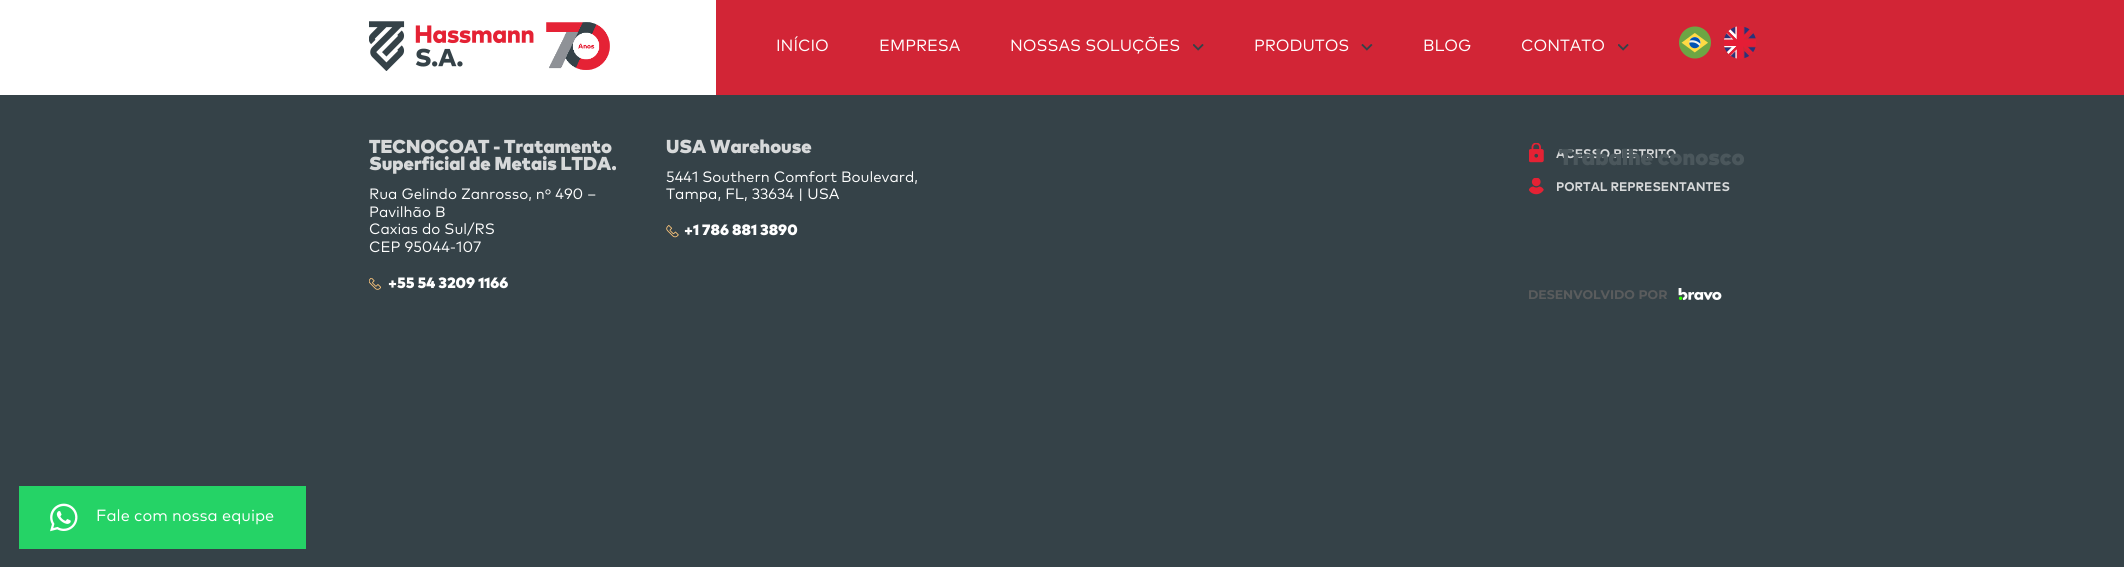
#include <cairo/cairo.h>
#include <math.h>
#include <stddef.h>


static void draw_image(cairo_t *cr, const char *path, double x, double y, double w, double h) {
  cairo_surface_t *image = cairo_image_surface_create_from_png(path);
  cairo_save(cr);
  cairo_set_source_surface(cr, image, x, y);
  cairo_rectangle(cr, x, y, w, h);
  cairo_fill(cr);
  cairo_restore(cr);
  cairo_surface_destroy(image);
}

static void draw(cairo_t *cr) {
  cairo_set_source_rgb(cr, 53 / 255.0, 66 / 255.0, 72 / 255.0);
  cairo_paint(cr);
  cairo_set_source_rgb(cr, 1, 1, 1);
  cairo_rectangle(cr, 0, 0, 716, 95);
  cairo_fill(cr);
  draw_image(cr, "images/1.png", 369, 21, 165, 50);
  draw_image(cr, "images/2.png", 546, 22, 64, 48);
  cairo_set_source_rgb(cr, 210 / 255.0, 37 / 255.0, 54 / 255.0);
  cairo_rectangle(cr, 716, 0, 1408, 95);
  cairo_fill(cr);
  draw_image(cr, "images/3.png", 1679, 26, 32, 33);
  draw_image(cr, "images/4.png", 1724, 26, 32, 33);
  draw_image(cr, "images/5.png", 1193, 44, 11, 7);
  draw_image(cr, "images/6.png", 1361, 44, 12, 7);
  draw_image(cr, "images/5.png", 1618, 44, 11, 7);
  draw_image(cr, "images/7.png", 369, 278, 12, 12);
  draw_image(cr, "images/8.png", 666, 225, 13, 13);
  draw_image(cr, "images/9.png", 1529, 143, 15, 20);
  draw_image(cr, "images/10.png", 1529, 178, 15, 17);
  draw_image(cr, "images/11.png", 1678, 288, 44, 12);
  cairo_set_source_rgb(cr, 37 / 255.0, 211 / 255.0, 102 / 255.0);
  cairo_rectangle(cr, 19, 486, 287, 63);
  cairo_fill(cr);
  draw_image(cr, "images/12.png", 50, 503, 28, 29);
  cairo_select_font_face(cr, "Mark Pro", CAIRO_FONT_SLANT_NORMAL, CAIRO_FONT_WEIGHT_NORMAL);
  cairo_set_font_size(cr, 16.25);
  cairo_set_source_rgb(cr, 1, 1, 1);
  cairo_move_to(cr, 776, 51);
  cairo_show_text(cr, "INÍCIO");
  cairo_move_to(cr, 879, 51);
  cairo_show_text(cr, "EMPRESA");
  cairo_move_to(cr, 1010, 51);
  cairo_show_text(cr, "NOSSAS SOLUÇÕES");
  cairo_move_to(cr, 1254, 51);
  cairo_show_text(cr, "PRODUTOS");
  cairo_move_to(cr, 1423, 51);
  cairo_show_text(cr, "BLOG");
  cairo_move_to(cr, 1521, 51);
  cairo_show_text(cr, "CONTATO");
  cairo_select_font_face(cr, "Mark Pro Black", CAIRO_FONT_SLANT_NORMAL, CAIRO_FONT_WEIGHT_NORMAL);
  cairo_set_font_size(cr, 18.75);
  cairo_set_source_rgb(cr, 215 / 255.0, 217 / 255.0, 218 / 255.0);
  cairo_move_to(cr, 369, 153);
  cairo_show_text(cr, "TECNOCOAT - Tratamento");
  cairo_move_to(cr, 369, 170);
  cairo_show_text(cr, "Superficial de Metais LTDA.");
  cairo_select_font_face(cr, "Mark Pro", CAIRO_FONT_SLANT_NORMAL, CAIRO_FONT_WEIGHT_NORMAL);
  cairo_set_font_size(cr, 15);
  cairo_set_source_rgb(cr, 1, 1, 1);
  cairo_move_to(cr, 369, 199);
  cairo_show_text(cr, "Rua Gelindo Zanrosso, nº 490 –");
  cairo_move_to(cr, 369, 217);
  cairo_show_text(cr, "Pavilhão B");
  cairo_move_to(cr, 369, 234);
  cairo_show_text(cr, "Caxias do Sul/RS");
  cairo_move_to(cr, 369, 252);
  cairo_show_text(cr, "CEP 95044-107");
  cairo_select_font_face(cr, "Mark Pro Black", CAIRO_FONT_SLANT_NORMAL, CAIRO_FONT_WEIGHT_NORMAL);
  cairo_move_to(cr, 388, 288);
  cairo_show_text(cr, "+55 54 3209 1166");
  cairo_set_font_size(cr, 18.75);
  cairo_set_source_rgb(cr, 215 / 255.0, 217 / 255.0, 218 / 255.0);
  cairo_move_to(cr, 666, 153);
  cairo_show_text(cr, "USA Warehouse");
  cairo_select_font_face(cr, "Mark Pro", CAIRO_FONT_SLANT_NORMAL, CAIRO_FONT_WEIGHT_NORMAL);
  cairo_set_font_size(cr, 15);
  cairo_set_source_rgb(cr, 1, 1, 1);
  cairo_move_to(cr, 666, 182);
  cairo_show_text(cr, "5441 Southern Comfort Boulevard,");
  cairo_move_to(cr, 666, 199);
  cairo_show_text(cr, "Tampa, FL, 33634 | USA");
  cairo_select_font_face(cr, "Mark Pro Black", CAIRO_FONT_SLANT_NORMAL, CAIRO_FONT_WEIGHT_NORMAL);
  cairo_move_to(cr, 684, 235);
  cairo_show_text(cr, "+1 786 881 3890");
  cairo_select_font_face(cr, "Mark Pro", CAIRO_FONT_SLANT_NORMAL, CAIRO_FONT_WEIGHT_BOLD);
  cairo_set_font_size(cr, 12.5);
  cairo_set_source_rgb(cr, 215 / 255.0, 217 / 255.0, 218 / 255.0);
  cairo_move_to(cr, 1556, 158);
  cairo_show_text(cr, "ACESSO RESTRITO");
  cairo_select_font_face(cr, "Mark Pro Black", CAIRO_FONT_SLANT_NORMAL, CAIRO_FONT_WEIGHT_NORMAL);
  cairo_set_font_size(cr, 22.5);
  cairo_set_source_rgb(cr, 75 / 255.0, 87 / 255.0, 92 / 255.0);
  cairo_move_to(cr, 1559, 165);
  cairo_show_text(cr, "Trabalhe conosco");
  cairo_select_font_face(cr, "Mark Pro", CAIRO_FONT_SLANT_NORMAL, CAIRO_FONT_WEIGHT_BOLD);
  cairo_set_font_size(cr, 12.5);
  cairo_set_source_rgb(cr, 215 / 255.0, 217 / 255.0, 218 / 255.0);
  cairo_move_to(cr, 1556, 191);
  cairo_show_text(cr, "PORTAL REPRESENTANTES");
  cairo_select_font_face(cr, "Montserrat", CAIRO_FONT_SLANT_NORMAL, CAIRO_FONT_WEIGHT_BOLD);
  cairo_set_source_rgb(cr, 90 / 255.0, 92 / 255.0, 93 / 255.0);
  cairo_move_to(cr, 1528, 299);
  cairo_show_text(cr, "DESENVOLVIDO POR");
  cairo_select_font_face(cr, "Mark Pro", CAIRO_FONT_SLANT_NORMAL, CAIRO_FONT_WEIGHT_NORMAL);
  cairo_set_font_size(cr, 16.25);
  cairo_set_source_rgb(cr, 1, 1, 1);
  cairo_move_to(cr, 96, 521);
  cairo_show_text(cr, "Fale com nossa equipe");
}

int main(void) {
  cairo_surface_t *surface = cairo_image_surface_create(CAIRO_FORMAT_RGB24, 2124, 567);
  cairo_t *cr = cairo_create(surface);
  cairo_font_options_t *options = cairo_font_options_create();
  cairo_font_options_set_hint_metrics(options, CAIRO_HINT_METRICS_OFF);
  cairo_font_options_set_hint_style(options, CAIRO_HINT_STYLE_NONE);
  cairo_set_font_options(cr, options);
  cairo_set_miter_limit(cr, 4);
  draw(cr);
  cairo_surface_write_to_png(surface, "out.png");
  cairo_font_options_destroy(options);
  cairo_destroy(cr);
  cairo_surface_destroy(surface);
  return 0;
}
